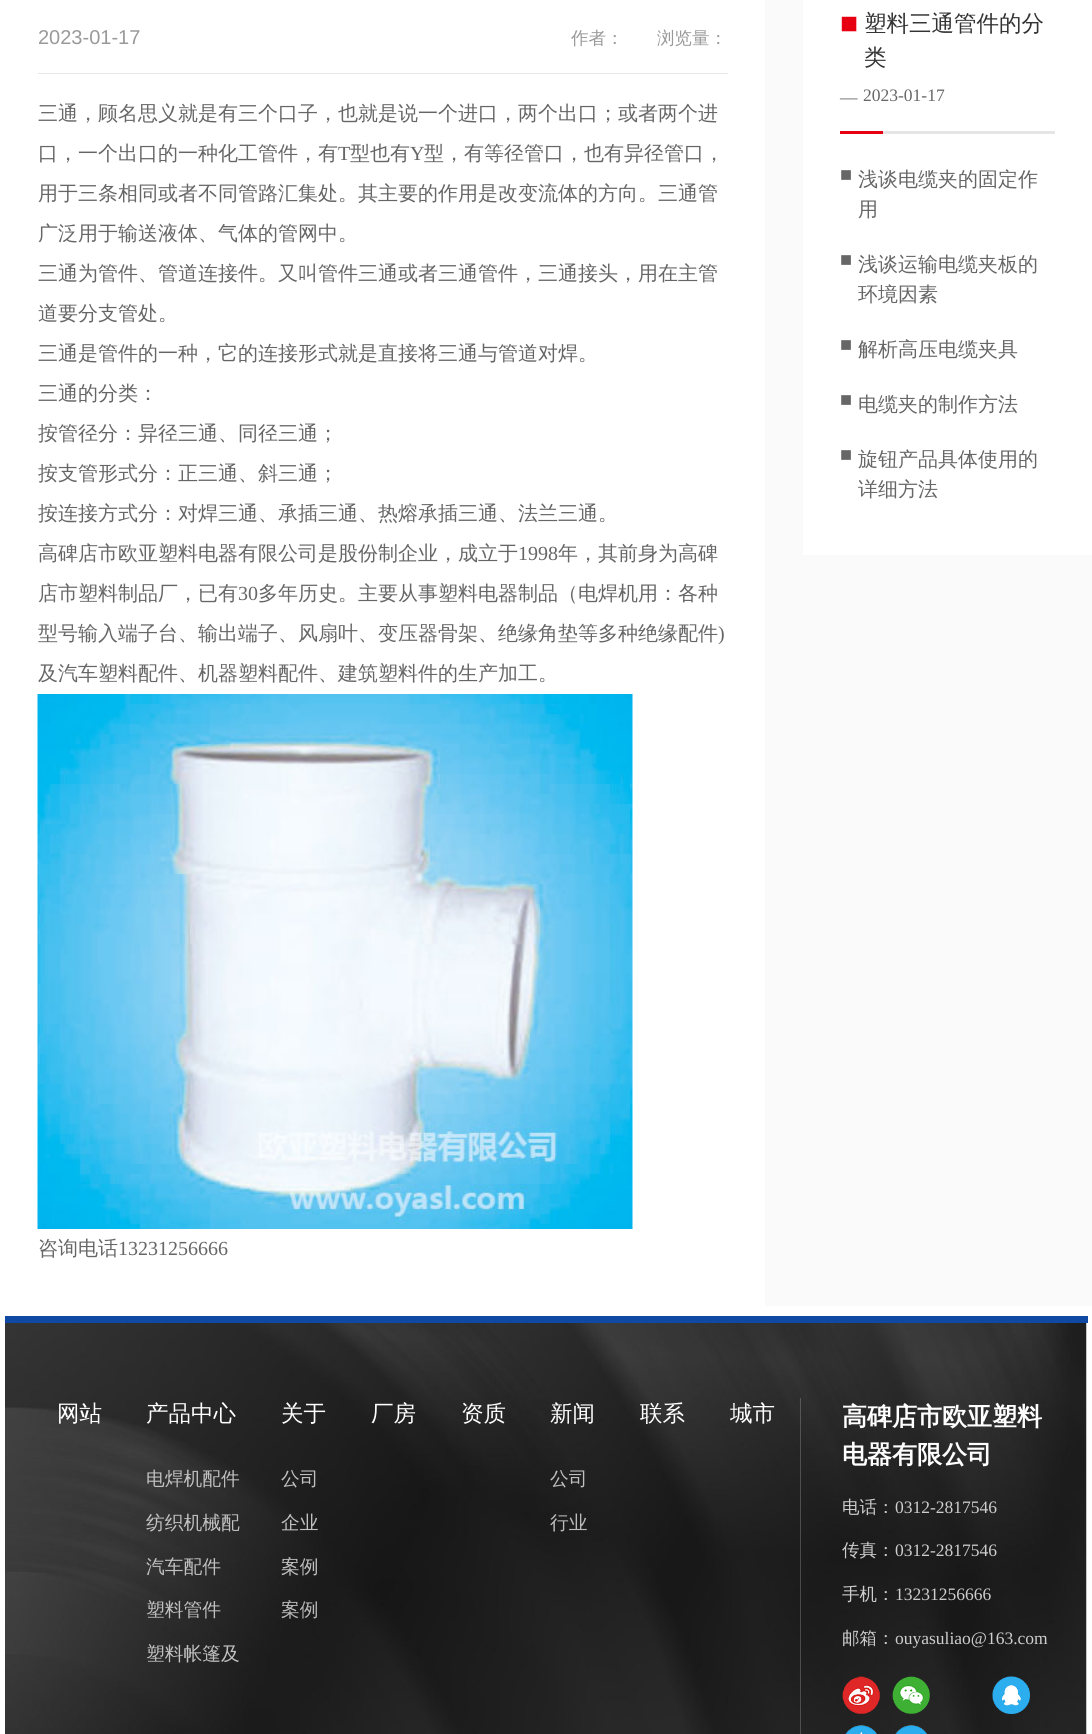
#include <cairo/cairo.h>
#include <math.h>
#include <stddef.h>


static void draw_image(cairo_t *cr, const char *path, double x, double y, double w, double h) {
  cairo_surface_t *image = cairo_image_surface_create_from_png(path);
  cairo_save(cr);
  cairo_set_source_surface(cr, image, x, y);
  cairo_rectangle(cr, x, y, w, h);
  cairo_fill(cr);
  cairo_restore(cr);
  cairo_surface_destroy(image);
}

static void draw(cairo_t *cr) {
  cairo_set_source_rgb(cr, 1, 1, 1);
  cairo_paint(cr);
  cairo_set_source_rgb(cr, 250 / 255.0, 250 / 255.0, 250 / 255.0);
  cairo_rectangle(cr, 765, 0, 327, 1306);
  cairo_fill(cr);
  cairo_set_source_rgb(cr, 230 / 255.0, 230 / 255.0, 230 / 255.0);
  cairo_rectangle(cr, 38, 73, 690, 1);
  cairo_fill(cr);
  draw_image(cr, "images/1.png", 37, 694, 596, 535);
  cairo_set_source_rgb(cr, 1, 1, 1);
  cairo_rectangle(cr, 803, 0, 289, 555);
  cairo_fill(cr);
  cairo_set_source_rgb(cr, 230 / 255.0, 0, 18 / 255.0);
  cairo_rectangle(cr, 840, 131, 43, 3);
  cairo_fill(cr);
  cairo_set_source_rgb(cr, 229 / 255.0, 229 / 255.0, 229 / 255.0);
  cairo_rectangle(cr, 883, 131, 172, 3);
  cairo_fill(cr);
  draw_image(cr, "images/2.png", 5, 1323, 1082, 411);
  cairo_set_source_rgb(cr, 16 / 255.0, 73 / 255.0, 163 / 255.0);
  cairo_rectangle(cr, 5, 1316, 1083, 7);
  cairo_fill(cr);
  cairo_set_source_rgba(cr, 1, 1, 1, 0.2);
  cairo_rectangle(cr, 800, 1398, 1, 336);
  cairo_fill(cr);
  draw_image(cr, "images/3.png", 842, 1676, 38, 38);
  draw_image(cr, "images/4.png", 892, 1676, 38, 38);
  draw_image(cr, "images/5.png", 992, 1676, 38, 38);
  draw_image(cr, "images/6.png", 845, 1725, 32, 9);
  draw_image(cr, "images/7.png", 895, 1725, 32, 9);
  cairo_select_font_face(cr, "Liberation Sans", CAIRO_FONT_SLANT_NORMAL, CAIRO_FONT_WEIGHT_NORMAL);
  cairo_set_font_size(cr, 20);
  cairo_set_source_rgb(cr, 153 / 255.0, 153 / 255.0, 153 / 255.0);
  cairo_move_to(cr, 38, 44);
  cairo_show_text(cr, "2023-01-17");
  cairo_select_font_face(cr, "WenQuanYi Zen Hei Medium", CAIRO_FONT_SLANT_NORMAL, CAIRO_FONT_WEIGHT_NORMAL);
  cairo_set_font_size(cr, 17.5);
  cairo_move_to(cr, 571, 44);
  cairo_show_text(cr, "作者：");
  cairo_move_to(cr, 657, 44);
  cairo_show_text(cr, "浏览量：");
  cairo_set_font_size(cr, 20);
  cairo_set_source_rgb(cr, 102 / 255.0, 102 / 255.0, 102 / 255.0);
  cairo_move_to(cr, 38, 120);
  cairo_show_text(cr, "三通，顾名思义就是有三个口子，也就是说一个进口，两个出口；或者两个进");
  cairo_move_to(cr, 38, 160);
  cairo_show_text(cr, "口，一个出口的一种化工管件，有");
  cairo_select_font_face(cr, "Liberation Serif", CAIRO_FONT_SLANT_NORMAL, CAIRO_FONT_WEIGHT_NORMAL);
  cairo_move_to(cr, 338, 160);
  cairo_show_text(cr, "T");
  cairo_select_font_face(cr, "WenQuanYi Zen Hei Medium", CAIRO_FONT_SLANT_NORMAL, CAIRO_FONT_WEIGHT_NORMAL);
  cairo_move_to(cr, 350, 160);
  cairo_show_text(cr, "型也有");
  cairo_select_font_face(cr, "Liberation Serif", CAIRO_FONT_SLANT_NORMAL, CAIRO_FONT_WEIGHT_NORMAL);
  cairo_move_to(cr, 410, 160);
  cairo_show_text(cr, "Y");
  cairo_select_font_face(cr, "WenQuanYi Zen Hei Medium", CAIRO_FONT_SLANT_NORMAL, CAIRO_FONT_WEIGHT_NORMAL);
  cairo_move_to(cr, 424, 160);
  cairo_show_text(cr, "型，有等径管口，也有异径管口，");
  cairo_move_to(cr, 38, 200);
  cairo_show_text(cr, "用于三条相同或者不同管路汇集处。其主要的作用是改变流体的方向。三通管");
  cairo_move_to(cr, 38, 240);
  cairo_show_text(cr, "广泛用于输送液体、气体的管网中。");
  cairo_move_to(cr, 38, 280);
  cairo_show_text(cr, "三通为管件、管道连接件。又叫管件三通或者三通管件，三通接头，用在主管");
  cairo_move_to(cr, 38, 320);
  cairo_show_text(cr, "道要分支管处。");
  cairo_move_to(cr, 38, 360);
  cairo_show_text(cr, "三通是管件的一种，它的连接形式就是直接将三通与管道对焊。");
  cairo_move_to(cr, 38, 400);
  cairo_show_text(cr, "三通的分类：");
  cairo_move_to(cr, 38, 440);
  cairo_show_text(cr, "按管径分：异径三通、同径三通；");
  cairo_move_to(cr, 38, 480);
  cairo_show_text(cr, "按支管形式分：正三通、斜三通；");
  cairo_move_to(cr, 38, 520);
  cairo_show_text(cr, "按连接方式分：对焊三通、承插三通、热熔承插三通、法兰三通。");
  cairo_move_to(cr, 38, 560);
  cairo_show_text(cr, "高碑店市欧亚塑料电器有限公司是股份制企业，成立于");
  cairo_select_font_face(cr, "Liberation Serif", CAIRO_FONT_SLANT_NORMAL, CAIRO_FONT_WEIGHT_NORMAL);
  cairo_move_to(cr, 518, 560);
  cairo_show_text(cr, "1998");
  cairo_select_font_face(cr, "WenQuanYi Zen Hei Medium", CAIRO_FONT_SLANT_NORMAL, CAIRO_FONT_WEIGHT_NORMAL);
  cairo_move_to(cr, 558, 560);
  cairo_show_text(cr, "年，其前身为高碑");
  cairo_move_to(cr, 38, 600);
  cairo_show_text(cr, "店市塑料制品厂，已有");
  cairo_select_font_face(cr, "Liberation Serif", CAIRO_FONT_SLANT_NORMAL, CAIRO_FONT_WEIGHT_NORMAL);
  cairo_move_to(cr, 238, 600);
  cairo_show_text(cr, "30");
  cairo_select_font_face(cr, "WenQuanYi Zen Hei Medium", CAIRO_FONT_SLANT_NORMAL, CAIRO_FONT_WEIGHT_NORMAL);
  cairo_move_to(cr, 258, 600);
  cairo_show_text(cr, "多年历史。主要从事塑料电器制品（电焊机用：各种");
  cairo_move_to(cr, 38, 640);
  cairo_show_text(cr, "型号输入端子台、输出端子、风扇叶、变压器骨架、绝缘角垫等多种绝缘配件");
  cairo_select_font_face(cr, "Liberation Serif", CAIRO_FONT_SLANT_NORMAL, CAIRO_FONT_WEIGHT_NORMAL);
  cairo_move_to(cr, 718, 640);
  cairo_show_text(cr, ")");
  cairo_select_font_face(cr, "WenQuanYi Zen Hei Medium", CAIRO_FONT_SLANT_NORMAL, CAIRO_FONT_WEIGHT_NORMAL);
  cairo_move_to(cr, 38, 680);
  cairo_show_text(cr, "及汽车塑料配件、机器塑料配件、建筑塑料件的生产加工。");
  cairo_move_to(cr, 38, 1255);
  cairo_show_text(cr, "咨询电话");
  cairo_select_font_face(cr, "Liberation Serif", CAIRO_FONT_SLANT_NORMAL, CAIRO_FONT_WEIGHT_NORMAL);
  cairo_move_to(cr, 118, 1255);
  cairo_show_text(cr, "13231256666");
  cairo_set_font_size(cr, 30);
  cairo_set_source_rgb(cr, 230 / 255.0, 0, 18 / 255.0);
  cairo_move_to(cr, 840, 33);
  cairo_show_text(cr, "■");
  cairo_select_font_face(cr, "WenQuanYi Zen Hei Medium", CAIRO_FONT_SLANT_NORMAL, CAIRO_FONT_WEIGHT_NORMAL);
  cairo_set_font_size(cr, 22.5);
  cairo_set_source_rgb(cr, 51 / 255.0, 51 / 255.0, 51 / 255.0);
  cairo_move_to(cr, 864, 31);
  cairo_show_text(cr, "塑料三通管件的分");
  cairo_move_to(cr, 864, 65);
  cairo_show_text(cr, "类");
  cairo_select_font_face(cr, "Liberation Serif", CAIRO_FONT_SLANT_NORMAL, CAIRO_FONT_WEIGHT_NORMAL);
  cairo_set_font_size(cr, 17.5);
  cairo_set_source_rgb(cr, 102 / 255.0, 102 / 255.0, 102 / 255.0);
  cairo_move_to(cr, 840, 103);
  cairo_show_text(cr, "—");
  cairo_move_to(cr, 863, 101);
  cairo_show_text(cr, "2023-01-17");
  cairo_set_font_size(cr, 20);
  cairo_move_to(cr, 840, 181);
  cairo_show_text(cr, "■");
  cairo_select_font_face(cr, "WenQuanYi Zen Hei Medium", CAIRO_FONT_SLANT_NORMAL, CAIRO_FONT_WEIGHT_NORMAL);
  cairo_move_to(cr, 858, 186);
  cairo_show_text(cr, "浅谈电缆夹的固定作");
  cairo_move_to(cr, 858, 216);
  cairo_show_text(cr, "用");
  cairo_select_font_face(cr, "Liberation Serif", CAIRO_FONT_SLANT_NORMAL, CAIRO_FONT_WEIGHT_NORMAL);
  cairo_move_to(cr, 840, 266);
  cairo_show_text(cr, "■");
  cairo_select_font_face(cr, "WenQuanYi Zen Hei Medium", CAIRO_FONT_SLANT_NORMAL, CAIRO_FONT_WEIGHT_NORMAL);
  cairo_move_to(cr, 858, 271);
  cairo_show_text(cr, "浅谈运输电缆夹板的");
  cairo_move_to(cr, 858, 301);
  cairo_show_text(cr, "环境因素");
  cairo_select_font_face(cr, "Liberation Serif", CAIRO_FONT_SLANT_NORMAL, CAIRO_FONT_WEIGHT_NORMAL);
  cairo_move_to(cr, 840, 351);
  cairo_show_text(cr, "■");
  cairo_select_font_face(cr, "WenQuanYi Zen Hei Medium", CAIRO_FONT_SLANT_NORMAL, CAIRO_FONT_WEIGHT_NORMAL);
  cairo_move_to(cr, 858, 356);
  cairo_show_text(cr, "解析高压电缆夹具");
  cairo_select_font_face(cr, "Liberation Serif", CAIRO_FONT_SLANT_NORMAL, CAIRO_FONT_WEIGHT_NORMAL);
  cairo_move_to(cr, 840, 406);
  cairo_show_text(cr, "■");
  cairo_select_font_face(cr, "WenQuanYi Zen Hei Medium", CAIRO_FONT_SLANT_NORMAL, CAIRO_FONT_WEIGHT_NORMAL);
  cairo_move_to(cr, 858, 411);
  cairo_show_text(cr, "电缆夹的制作方法");
  cairo_select_font_face(cr, "Liberation Serif", CAIRO_FONT_SLANT_NORMAL, CAIRO_FONT_WEIGHT_NORMAL);
  cairo_move_to(cr, 840, 461);
  cairo_show_text(cr, "■");
  cairo_select_font_face(cr, "WenQuanYi Zen Hei Medium", CAIRO_FONT_SLANT_NORMAL, CAIRO_FONT_WEIGHT_NORMAL);
  cairo_move_to(cr, 858, 466);
  cairo_show_text(cr, "旋钮产品具体使用的");
  cairo_move_to(cr, 858, 496);
  cairo_show_text(cr, "详细方法");
  cairo_set_font_size(cr, 22.5);
  cairo_set_source_rgb(cr, 1, 1, 1);
  cairo_move_to(cr, 57, 1421);
  cairo_show_text(cr, "网站");
  cairo_move_to(cr, 146, 1421);
  cairo_show_text(cr, "产品中心");
  cairo_set_font_size(cr, 18.75);
  cairo_set_source_rgb(cr, 193 / 255.0, 193 / 255.0, 193 / 255.0);
  cairo_move_to(cr, 146, 1485);
  cairo_show_text(cr, "电焊机配件");
  cairo_move_to(cr, 146, 1529);
  cairo_show_text(cr, "纺织机械配");
  cairo_move_to(cr, 146, 1573);
  cairo_show_text(cr, "汽车配件");
  cairo_move_to(cr, 146, 1616);
  cairo_show_text(cr, "塑料管件");
  cairo_move_to(cr, 146, 1660);
  cairo_show_text(cr, "塑料帐篷及");
  cairo_set_font_size(cr, 22.5);
  cairo_set_source_rgb(cr, 1, 1, 1);
  cairo_move_to(cr, 281, 1421);
  cairo_show_text(cr, "关于");
  cairo_set_font_size(cr, 18.75);
  cairo_set_source_rgb(cr, 193 / 255.0, 193 / 255.0, 193 / 255.0);
  cairo_move_to(cr, 281, 1485);
  cairo_show_text(cr, "公司");
  cairo_move_to(cr, 281, 1529);
  cairo_show_text(cr, "企业");
  cairo_move_to(cr, 281, 1573);
  cairo_show_text(cr, "案例");
  cairo_set_source_rgb(cr, 187 / 255.0, 187 / 255.0, 187 / 255.0);
  cairo_move_to(cr, 281, 1616);
  cairo_show_text(cr, "案例");
  cairo_set_font_size(cr, 22.5);
  cairo_set_source_rgb(cr, 1, 1, 1);
  cairo_move_to(cr, 371, 1421);
  cairo_show_text(cr, "厂房");
  cairo_move_to(cr, 461, 1421);
  cairo_show_text(cr, "资质");
  cairo_move_to(cr, 550, 1421);
  cairo_show_text(cr, "新闻");
  cairo_set_font_size(cr, 18.75);
  cairo_set_source_rgb(cr, 193 / 255.0, 193 / 255.0, 193 / 255.0);
  cairo_move_to(cr, 550, 1485);
  cairo_show_text(cr, "公司");
  cairo_set_source_rgb(cr, 187 / 255.0, 187 / 255.0, 187 / 255.0);
  cairo_move_to(cr, 550, 1529);
  cairo_show_text(cr, "行业");
  cairo_set_font_size(cr, 22.5);
  cairo_set_source_rgb(cr, 1, 1, 1);
  cairo_move_to(cr, 640, 1421);
  cairo_show_text(cr, "联系");
  cairo_save(cr);
  cairo_rectangle(cr, 730, 1398, 51, 33);
  cairo_clip(cr);
  cairo_move_to(cr, 730, 1421);
  cairo_show_text(cr, "城市");
  cairo_restore(cr);
  cairo_select_font_face(cr, "WenQuanYi Zen Hei", CAIRO_FONT_SLANT_NORMAL, CAIRO_FONT_WEIGHT_BOLD);
  cairo_set_font_size(cr, 25);
  cairo_move_to(cr, 842, 1425);
  cairo_show_text(cr, "高碑店市欧亚塑料");
  cairo_move_to(cr, 842, 1463);
  cairo_show_text(cr, "电器有限公司");
  cairo_select_font_face(cr, "WenQuanYi Zen Hei Medium", CAIRO_FONT_SLANT_NORMAL, CAIRO_FONT_WEIGHT_NORMAL);
  cairo_set_font_size(cr, 17.5);
  cairo_set_source_rgb(cr, 206 / 255.0, 206 / 255.0, 206 / 255.0);
  cairo_move_to(cr, 842, 1513);
  cairo_show_text(cr, "电话：");
  cairo_select_font_face(cr, "Liberation Serif", CAIRO_FONT_SLANT_NORMAL, CAIRO_FONT_WEIGHT_NORMAL);
  cairo_move_to(cr, 895, 1513);
  cairo_show_text(cr, "0312-2817546");
  cairo_select_font_face(cr, "WenQuanYi Zen Hei Medium", CAIRO_FONT_SLANT_NORMAL, CAIRO_FONT_WEIGHT_NORMAL);
  cairo_move_to(cr, 842, 1556);
  cairo_show_text(cr, "传真：");
  cairo_select_font_face(cr, "Liberation Serif", CAIRO_FONT_SLANT_NORMAL, CAIRO_FONT_WEIGHT_NORMAL);
  cairo_move_to(cr, 895, 1556);
  cairo_show_text(cr, "0312-2817546");
  cairo_select_font_face(cr, "WenQuanYi Zen Hei Medium", CAIRO_FONT_SLANT_NORMAL, CAIRO_FONT_WEIGHT_NORMAL);
  cairo_move_to(cr, 842, 1600);
  cairo_show_text(cr, "手机：");
  cairo_select_font_face(cr, "Liberation Serif", CAIRO_FONT_SLANT_NORMAL, CAIRO_FONT_WEIGHT_NORMAL);
  cairo_move_to(cr, 895, 1600);
  cairo_show_text(cr, "13231256666");
  cairo_select_font_face(cr, "WenQuanYi Zen Hei Medium", CAIRO_FONT_SLANT_NORMAL, CAIRO_FONT_WEIGHT_NORMAL);
  cairo_move_to(cr, 842, 1644);
  cairo_show_text(cr, "邮箱：");
  cairo_select_font_face(cr, "Liberation Serif", CAIRO_FONT_SLANT_NORMAL, CAIRO_FONT_WEIGHT_NORMAL);
  cairo_move_to(cr, 895, 1644);
  cairo_show_text(cr, "ouyasuliao@163.com");
}

int main(void) {
  cairo_surface_t *surface = cairo_image_surface_create(CAIRO_FORMAT_RGB24, 1092, 1734);
  cairo_t *cr = cairo_create(surface);
  cairo_font_options_t *options = cairo_font_options_create();
  cairo_font_options_set_hint_metrics(options, CAIRO_HINT_METRICS_OFF);
  cairo_font_options_set_hint_style(options, CAIRO_HINT_STYLE_NONE);
  cairo_set_font_options(cr, options);
  cairo_set_miter_limit(cr, 4);
  draw(cr);
  cairo_surface_write_to_png(surface, "out.png");
  cairo_font_options_destroy(options);
  cairo_destroy(cr);
  cairo_surface_destroy(surface);
  return 0;
}
